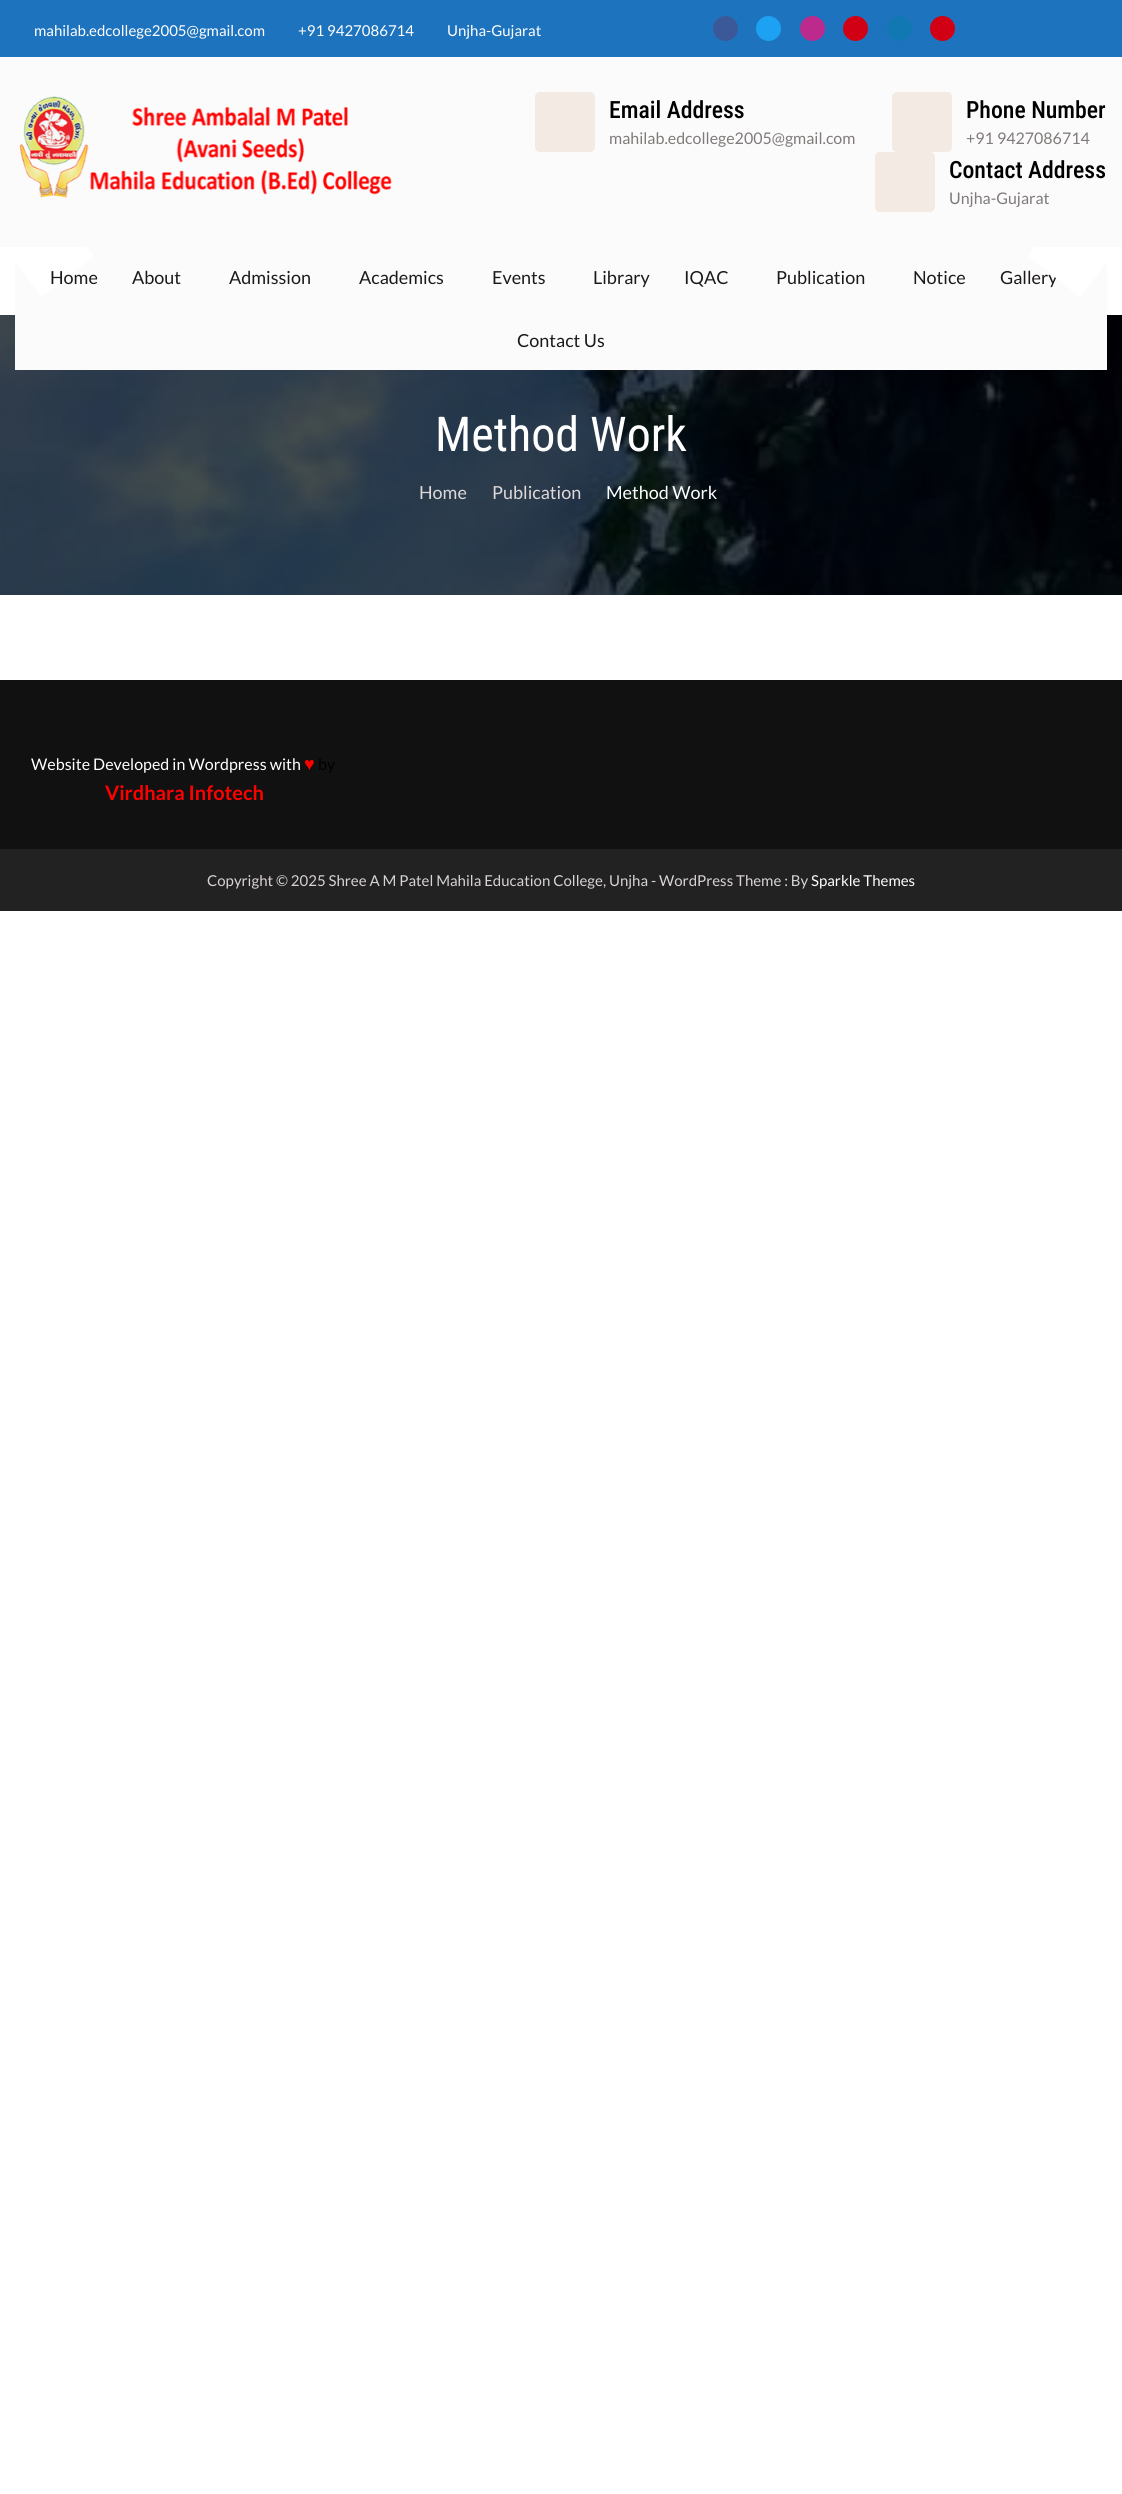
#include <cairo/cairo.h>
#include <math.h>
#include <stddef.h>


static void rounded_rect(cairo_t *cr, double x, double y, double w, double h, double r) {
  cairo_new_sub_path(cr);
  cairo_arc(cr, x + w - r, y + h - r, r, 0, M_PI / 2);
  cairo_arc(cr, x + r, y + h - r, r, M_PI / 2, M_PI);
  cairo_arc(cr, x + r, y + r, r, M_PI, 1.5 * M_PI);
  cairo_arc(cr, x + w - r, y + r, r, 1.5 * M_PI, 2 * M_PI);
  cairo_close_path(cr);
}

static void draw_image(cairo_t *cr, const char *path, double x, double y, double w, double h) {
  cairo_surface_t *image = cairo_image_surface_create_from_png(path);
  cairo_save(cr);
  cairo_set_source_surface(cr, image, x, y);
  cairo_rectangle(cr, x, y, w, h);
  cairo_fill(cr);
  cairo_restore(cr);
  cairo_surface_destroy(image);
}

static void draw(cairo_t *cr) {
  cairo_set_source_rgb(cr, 1, 1, 1);
  cairo_paint(cr);
  cairo_set_source_rgb(cr, 30 / 255.0, 115 / 255.0, 190 / 255.0);
  cairo_rectangle(cr, 0, 0, 1122, 57);
  cairo_fill(cr);
  cairo_set_source_rgb(cr, 59 / 255.0, 89 / 255.0, 152 / 255.0);
  cairo_arc(cr, 725.5, 28.5, 12.5, 0, 2 * M_PI);
  cairo_fill(cr);
  cairo_set_source_rgb(cr, 29 / 255.0, 161 / 255.0, 242 / 255.0);
  cairo_arc(cr, 768.5, 28.5, 12.5, 0, 2 * M_PI);
  cairo_fill(cr);
  cairo_set_source_rgb(cr, 188 / 255.0, 42 / 255.0, 141 / 255.0);
  cairo_arc(cr, 812.5, 28.5, 12.5, 0, 2 * M_PI);
  cairo_fill(cr);
  cairo_set_source_rgb(cr, 210 / 255.0, 0, 20 / 255.0);
  cairo_arc(cr, 855.5, 28.5, 12.5, 0, 2 * M_PI);
  cairo_fill(cr);
  cairo_set_source_rgb(cr, 17 / 255.0, 120 / 255.0, 179 / 255.0);
  cairo_arc(cr, 899.5, 28.5, 12.5, 0, 2 * M_PI);
  cairo_fill(cr);
  cairo_set_source_rgb(cr, 210 / 255.0, 0, 20 / 255.0);
  cairo_arc(cr, 942.5, 28.5, 12.5, 0, 2 * M_PI);
  cairo_fill(cr);
  draw_image(cr, "images/2.png", 0, 315, 1122, 280);
  cairo_set_source_rgb(cr, 252 / 255.0, 251 / 255.0, 251 / 255.0);
  cairo_rectangle(cr, 15, 247, 1092, 123);
  cairo_fill(cr);
  cairo_set_source_rgb(cr, 1, 1, 1);
  cairo_new_path(cr);
  cairo_move_to(cr, 2, 245);
  cairo_line_to(cr, 54, 204);
  cairo_line_to(cr, 94, 256);
  cairo_line_to(cr, 42, 297);
  cairo_close_path(cr);
  cairo_fill(cr);
  cairo_set_source_rgb(cr, 17 / 255.0, 17 / 255.0, 17 / 255.0);
  cairo_rectangle(cr, 0, 680, 1122, 169);
  cairo_fill(cr);
  cairo_set_source_rgb(cr, 34 / 255.0, 34 / 255.0, 34 / 255.0);
  cairo_rectangle(cr, 0, 849, 1122, 62);
  cairo_fill(cr);
  cairo_select_font_face(cr, "Lato", CAIRO_FONT_SLANT_NORMAL, CAIRO_FONT_WEIGHT_NORMAL);
  cairo_set_font_size(cr, 15);
  cairo_set_source_rgb(cr, 1, 1, 1);
  cairo_move_to(cr, 34, 36);
  cairo_show_text(cr, "mahilab.edcollege2005@gmail.com");
  cairo_move_to(cr, 298, 36);
  cairo_show_text(cr, "+91 9427086714");
  cairo_move_to(cr, 447, 36);
  cairo_show_text(cr, "Unjha-Gujarat");
  cairo_set_font_size(cr, 18);
  cairo_set_source_rgb(cr, 28 / 255.0, 25 / 255.0, 25 / 255.0);
  cairo_move_to(cr, 50, 284);
  cairo_show_text(cr, "Home");
  cairo_move_to(cr, 132, 284);
  cairo_show_text(cr, "About");
  cairo_move_to(cr, 229, 284);
  cairo_show_text(cr, "Admission");
  cairo_move_to(cr, 359, 284);
  cairo_show_text(cr, "Academics");
  cairo_move_to(cr, 492, 284);
  cairo_show_text(cr, "Events");
  cairo_move_to(cr, 593, 284);
  cairo_show_text(cr, "Library");
  cairo_move_to(cr, 684, 284);
  cairo_show_text(cr, "IQAC");
  cairo_move_to(cr, 776, 284);
  cairo_show_text(cr, "Publication");
  cairo_move_to(cr, 913, 284);
  cairo_show_text(cr, "Notice");
  cairo_move_to(cr, 1000, 284);
  cairo_show_text(cr, "Gallery");
  cairo_set_source_rgb(cr, 1, 1, 1);
  cairo_new_path(cr);
  cairo_move_to(cr, 1068, 204);
  cairo_line_to(cr, 1120, 245);
  cairo_line_to(cr, 1080, 297);
  cairo_line_to(cr, 1028, 256);
  cairo_close_path(cr);
  cairo_fill(cr);
  cairo_set_source_rgb(cr, 252 / 255.0, 251 / 255.0, 251 / 255.0);
  cairo_rectangle(cr, 0, 57, 1122, 190);
  cairo_fill(cr);
  cairo_set_font_size(cr, 16);
  cairo_set_source_rgb(cr, 128 / 255.0, 122 / 255.0, 122 / 255.0);
  cairo_move_to(cr, 949, 204);
  cairo_show_text(cr, "Unjha-Gujarat");
  cairo_select_font_face(cr, "Roboto Condensed Medium", CAIRO_FONT_SLANT_NORMAL, CAIRO_FONT_WEIGHT_NORMAL);
  cairo_set_font_size(cr, 23.75);
  cairo_set_source_rgb(cr, 0, 0, 0);
  cairo_move_to(cr, 949, 178);
  cairo_show_text(cr, "Contact Address");
  cairo_set_source_rgb(cr, 242 / 255.0, 234 / 255.0, 227 / 255.0);
  rounded_rect(cr, 875, 152, 60, 60, 5);
  cairo_fill(cr);
  cairo_select_font_face(cr, "Lato", CAIRO_FONT_SLANT_NORMAL, CAIRO_FONT_WEIGHT_NORMAL);
  cairo_set_font_size(cr, 16);
  cairo_set_source_rgb(cr, 128 / 255.0, 122 / 255.0, 122 / 255.0);
  cairo_move_to(cr, 966, 144);
  cairo_show_text(cr, "+91 9427086714");
  cairo_select_font_face(cr, "Roboto Condensed Medium", CAIRO_FONT_SLANT_NORMAL, CAIRO_FONT_WEIGHT_NORMAL);
  cairo_set_font_size(cr, 23.75);
  cairo_set_source_rgb(cr, 0, 0, 0);
  cairo_move_to(cr, 966, 118);
  cairo_show_text(cr, "Phone Number");
  cairo_set_source_rgb(cr, 242 / 255.0, 234 / 255.0, 227 / 255.0);
  rounded_rect(cr, 892, 92, 60, 60, 5);
  cairo_fill(cr);
  cairo_select_font_face(cr, "Lato", CAIRO_FONT_SLANT_NORMAL, CAIRO_FONT_WEIGHT_NORMAL);
  cairo_set_font_size(cr, 16);
  cairo_set_source_rgb(cr, 128 / 255.0, 122 / 255.0, 122 / 255.0);
  cairo_move_to(cr, 609, 144);
  cairo_show_text(cr, "mahilab.edcollege2005@gmail.com");
  cairo_select_font_face(cr, "Roboto Condensed Medium", CAIRO_FONT_SLANT_NORMAL, CAIRO_FONT_WEIGHT_NORMAL);
  cairo_set_font_size(cr, 23.75);
  cairo_set_source_rgb(cr, 0, 0, 0);
  cairo_move_to(cr, 609, 118);
  cairo_show_text(cr, "Email Address");
  cairo_set_source_rgb(cr, 242 / 255.0, 234 / 255.0, 227 / 255.0);
  rounded_rect(cr, 535, 92, 60, 60, 5);
  cairo_fill(cr);
  draw_image(cr, "images/1.png", 19, 96, 373, 102);
  cairo_select_font_face(cr, "Lato", CAIRO_FONT_SLANT_NORMAL, CAIRO_FONT_WEIGHT_NORMAL);
  cairo_set_font_size(cr, 18);
  cairo_set_source_rgb(cr, 28 / 255.0, 25 / 255.0, 25 / 255.0);
  cairo_move_to(cr, 517, 347);
  cairo_show_text(cr, "Contact Us");
  cairo_select_font_face(cr, "Roboto Condensed", CAIRO_FONT_SLANT_NORMAL, CAIRO_FONT_WEIGHT_NORMAL);
  cairo_set_font_size(cr, 48);
  cairo_set_source_rgb(cr, 1, 1, 1);
  cairo_move_to(cr, 435, 451);
  cairo_show_text(cr, "Method Work");
  cairo_select_font_face(cr, "Lato", CAIRO_FONT_SLANT_NORMAL, CAIRO_FONT_WEIGHT_NORMAL);
  cairo_set_font_size(cr, 18);
  cairo_set_source_rgb(cr, 223 / 255.0, 216 / 255.0, 216 / 255.0);
  cairo_move_to(cr, 419, 499);
  cairo_show_text(cr, "Home");
  cairo_move_to(cr, 492, 499);
  cairo_show_text(cr, "Publication");
  cairo_set_source_rgb(cr, 1, 1, 1);
  cairo_move_to(cr, 606, 499);
  cairo_show_text(cr, "Method Work");
  cairo_set_font_size(cr, 16);
  cairo_move_to(cr, 31, 770);
  cairo_show_text(cr, "Website Developed in Wordpress with");
  cairo_set_source_rgb(cr, 0, 0, 0);
  cairo_move_to(cr, 318, 770);
  cairo_show_text(cr, "by");
  cairo_select_font_face(cr, "Lato", CAIRO_FONT_SLANT_NORMAL, CAIRO_FONT_WEIGHT_BOLD);
  cairo_set_font_size(cr, 20);
  cairo_set_source_rgb(cr, 1, 0, 0);
  cairo_move_to(cr, 105, 800);
  cairo_show_text(cr, "Virdhara Infotech");
  cairo_select_font_face(cr, "Liberation Sans", CAIRO_FONT_SLANT_NORMAL, CAIRO_FONT_WEIGHT_NORMAL);
  cairo_set_font_size(cr, 18);
  cairo_move_to(cr, 304, 770);
  cairo_show_text(cr, "♥");
  cairo_select_font_face(cr, "Lato", CAIRO_FONT_SLANT_NORMAL, CAIRO_FONT_WEIGHT_NORMAL);
  cairo_set_font_size(cr, 15);
  cairo_set_source_rgb(cr, 217 / 255.0, 211 / 255.0, 211 / 255.0);
  cairo_move_to(cr, 207, 886);
  cairo_show_text(cr, "Copyright © 2025 Shree A M Patel Mahila Education College, Unjha - WordPress Theme : By");
  cairo_set_source_rgb(cr, 1, 1, 1);
  cairo_move_to(cr, 811, 886);
  cairo_show_text(cr, "Sparkle Themes");
}

int main(void) {
  cairo_surface_t *surface = cairo_image_surface_create(CAIRO_FORMAT_RGB24, 1122, 2494);
  cairo_t *cr = cairo_create(surface);
  cairo_font_options_t *options = cairo_font_options_create();
  cairo_font_options_set_hint_metrics(options, CAIRO_HINT_METRICS_OFF);
  cairo_font_options_set_hint_style(options, CAIRO_HINT_STYLE_NONE);
  cairo_set_font_options(cr, options);
  cairo_set_miter_limit(cr, 4);
  draw(cr);
  cairo_surface_write_to_png(surface, "out.png");
  cairo_font_options_destroy(options);
  cairo_destroy(cr);
  cairo_surface_destroy(surface);
  return 0;
}
